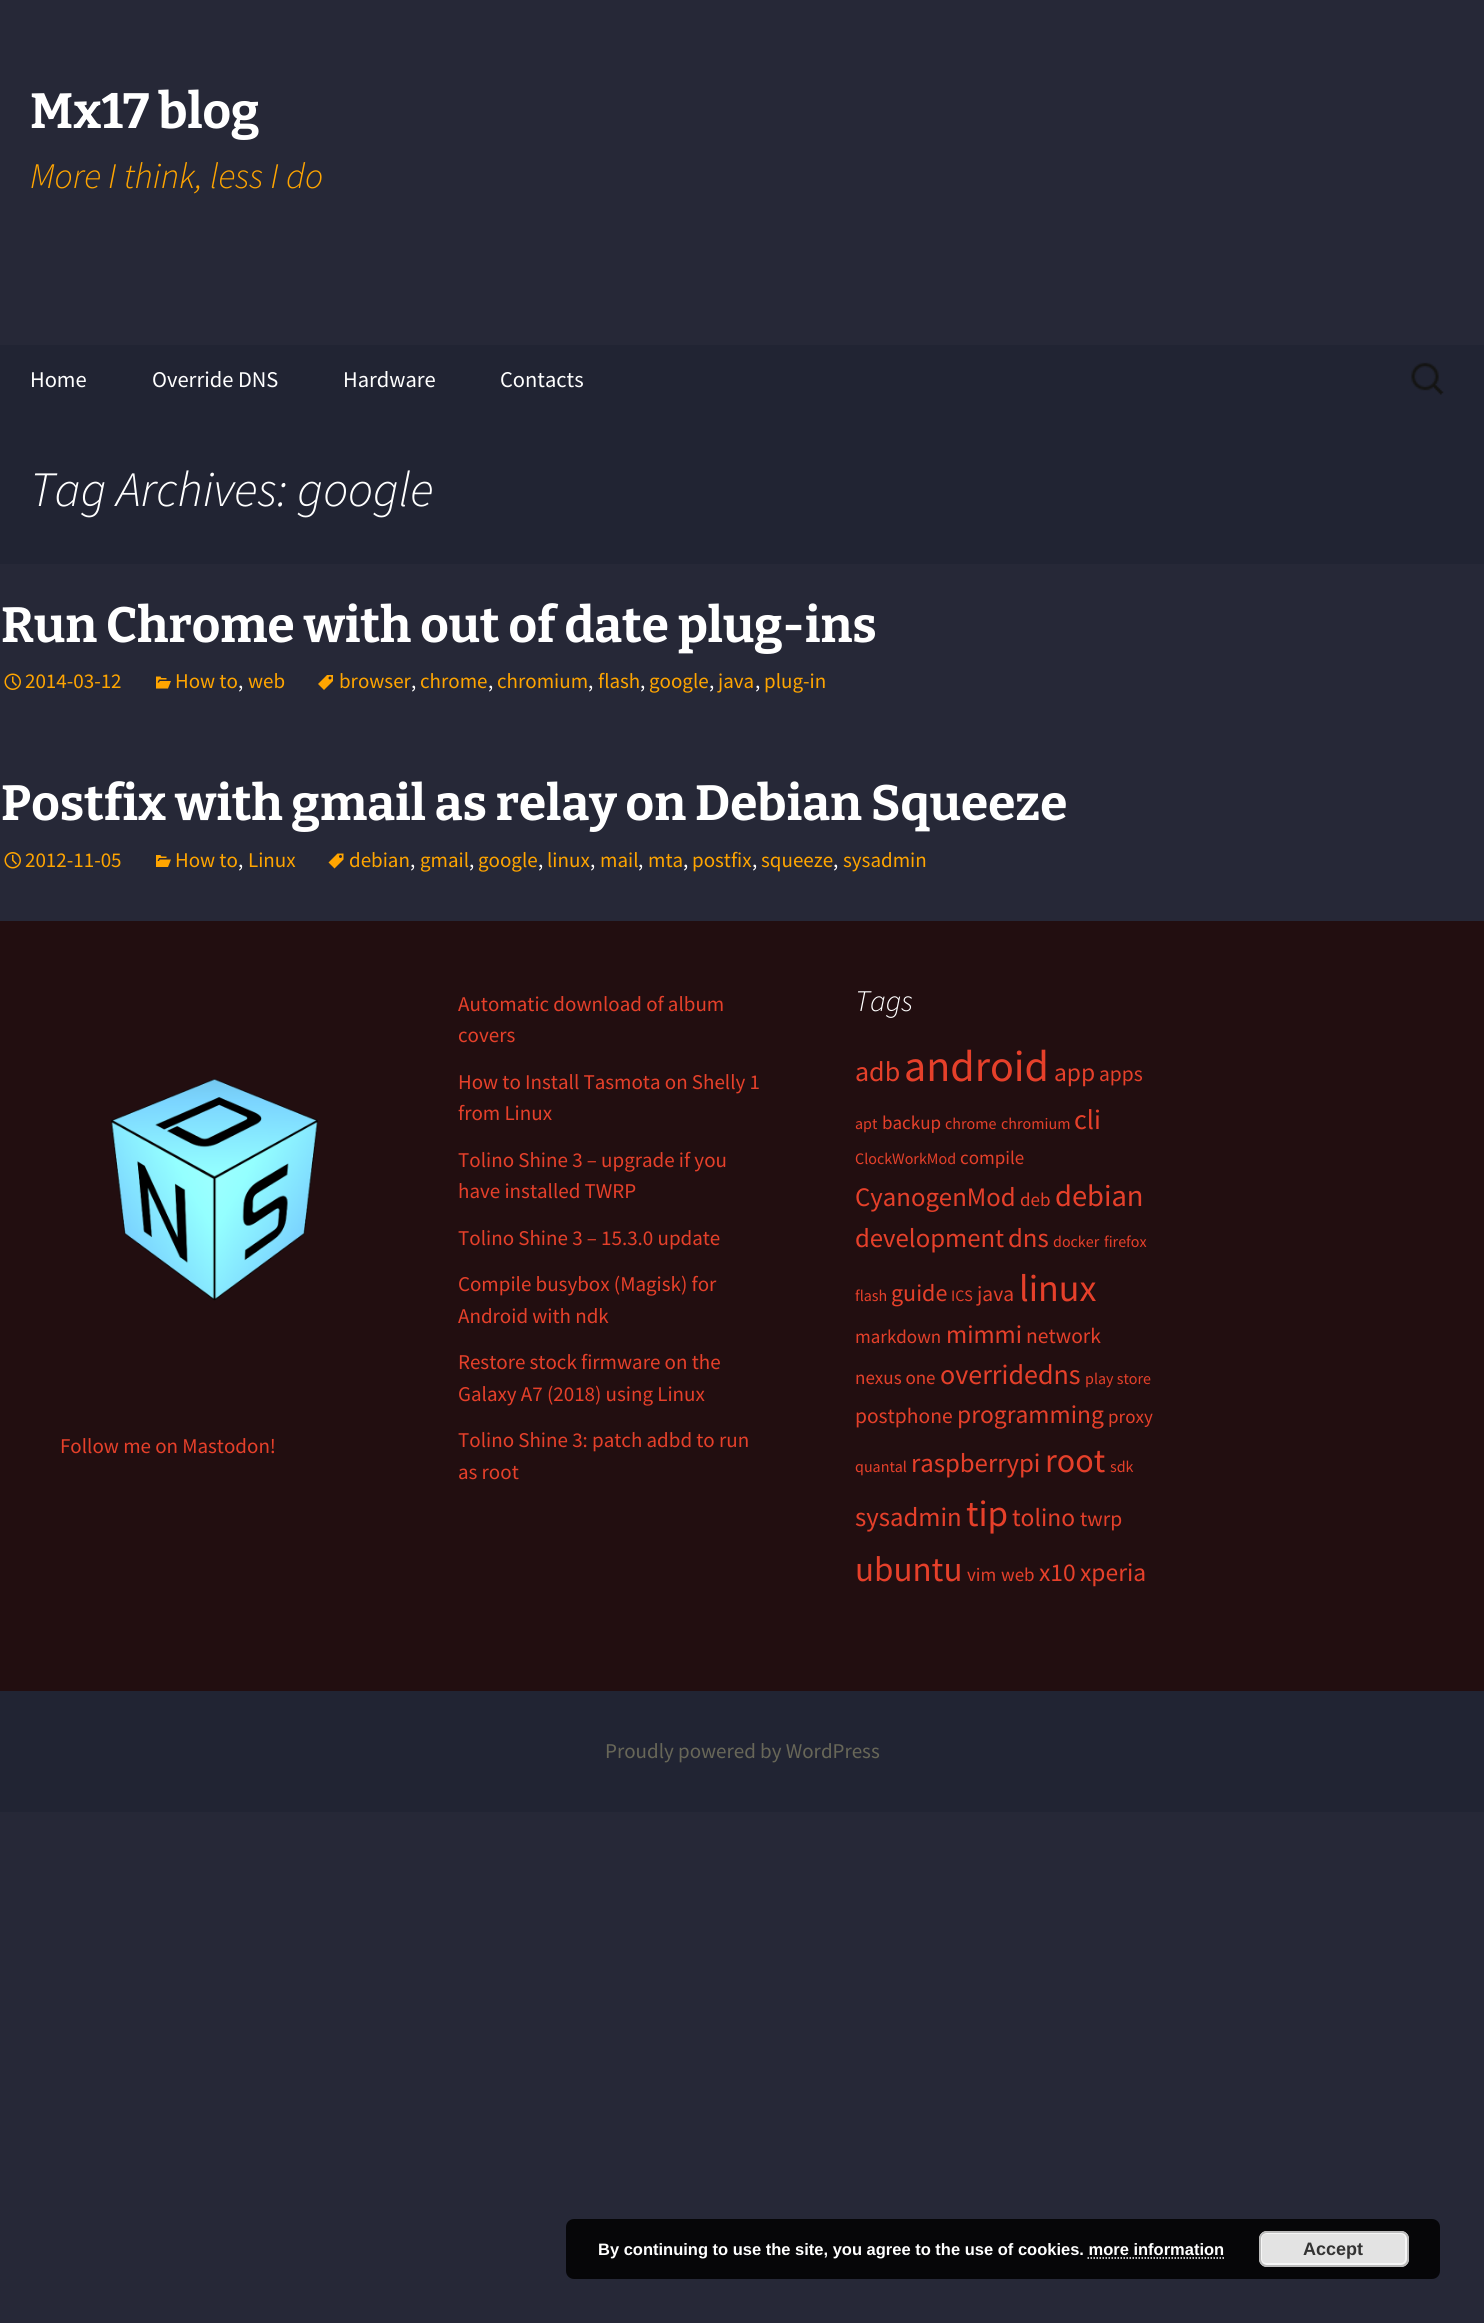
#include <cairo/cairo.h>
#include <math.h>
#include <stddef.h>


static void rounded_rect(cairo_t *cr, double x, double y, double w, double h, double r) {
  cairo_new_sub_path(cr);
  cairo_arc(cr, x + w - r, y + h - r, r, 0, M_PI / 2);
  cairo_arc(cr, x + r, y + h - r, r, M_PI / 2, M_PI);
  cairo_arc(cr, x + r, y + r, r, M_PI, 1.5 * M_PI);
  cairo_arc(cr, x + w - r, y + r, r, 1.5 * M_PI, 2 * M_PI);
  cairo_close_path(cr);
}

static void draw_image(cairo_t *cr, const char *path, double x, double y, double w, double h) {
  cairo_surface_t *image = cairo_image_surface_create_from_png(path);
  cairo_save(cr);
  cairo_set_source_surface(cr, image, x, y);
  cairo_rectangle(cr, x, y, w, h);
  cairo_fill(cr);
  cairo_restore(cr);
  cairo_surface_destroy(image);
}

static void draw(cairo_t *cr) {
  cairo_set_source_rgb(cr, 38 / 255.0, 40 / 255.0, 55 / 255.0);
  cairo_paint(cr);
  cairo_set_source_rgb(cr, 33 / 255.0, 36 / 255.0, 51 / 255.0);
  cairo_rectangle(cr, 0, 345, 1484, 219);
  cairo_fill(cr);
  draw_image(cr, "images/1.png", 1411, 362, 33, 33);
  draw_image(cr, "images/2.png", 4, 673, 17, 17);
  draw_image(cr, "images/3.png", 156, 676, 15, 13);
  draw_image(cr, "images/4.png", 318, 675, 15, 15);
  draw_image(cr, "images/5.png", 4, 852, 17, 17);
  draw_image(cr, "images/6.png", 156, 855, 15, 12);
  draw_image(cr, "images/7.png", 328, 853, 16, 16);
  cairo_rectangle(cr, 0, 1691, 1484, 121);
  cairo_fill(cr);
  cairo_set_source_rgb(cr, 34 / 255.0, 14 / 255.0, 16 / 255.0);
  cairo_rectangle(cr, 0, 921, 1484, 770);
  cairo_fill(cr);
  draw_image(cr, "images/8.png", 111, 1078, 207, 223);
  cairo_set_source_rgb(cr, 6 / 255.0, 6 / 255.0, 8 / 255.0);
  rounded_rect(cr, 566, 2219, 874, 60, 8);
  cairo_fill(cr);
  cairo_set_source_rgb(cr, 227 / 255.0, 227 / 255.0, 227 / 255.0);
  rounded_rect(cr, 1259, 2231, 150, 36, 8);
  cairo_fill(cr);
  rounded_rect(cr, 1261, 2233, 145, 31, 5);
  cairo_set_source_rgb(cr, 246 / 255.0, 246 / 255.0, 246 / 255.0);
  cairo_stroke(cr);
  rounded_rect(cr, 1260, 2232, 148, 34, 7);
  cairo_set_source_rgb(cr, 187 / 255.0, 187 / 255.0, 187 / 255.0);
  cairo_stroke(cr);
  cairo_new_path(cr);
  cairo_move_to(cr, 1087.5, 2258);
  cairo_line_to(cr, 1224, 2258);
  cairo_set_source_rgb(cr, 1, 1, 1);
  cairo_set_line_width(cr, 1.5);
  cairo_set_dash(cr, (double[]){1.5, 1.5}, 2, 0);
  cairo_stroke(cr);
  cairo_select_font_face(cr, "Bitter Thin", CAIRO_FONT_SLANT_NORMAL, CAIRO_FONT_WEIGHT_NORMAL);
  cairo_set_font_size(cr, 49.5);
  cairo_move_to(cr, 30, 128);
  cairo_show_text(cr, "Mx17 blog");
  cairo_select_font_face(cr, "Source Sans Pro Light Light", CAIRO_FONT_SLANT_ITALIC, CAIRO_FONT_WEIGHT_NORMAL);
  cairo_set_font_size(cr, 36);
  cairo_set_source_rgb(cr, 1, 165 / 255.0, 0);
  cairo_move_to(cr, 30, 188);
  cairo_show_text(cr, "More I think, less I do");
  cairo_select_font_face(cr, "Source Sans Pro", CAIRO_FONT_SLANT_NORMAL, CAIRO_FONT_WEIGHT_NORMAL);
  cairo_set_font_size(cr, 22.5);
  cairo_set_source_rgb(cr, 1, 1, 1);
  cairo_move_to(cr, 30, 387);
  cairo_show_text(cr, "Home");
  cairo_move_to(cr, 152, 387);
  cairo_show_text(cr, "Override DNS");
  cairo_move_to(cr, 343, 387);
  cairo_show_text(cr, "Hardware");
  cairo_move_to(cr, 500, 387);
  cairo_show_text(cr, "Contacts");
  cairo_select_font_face(cr, "Source Sans Pro Light Light", CAIRO_FONT_SLANT_ITALIC, CAIRO_FONT_WEIGHT_NORMAL);
  cairo_set_font_size(cr, 49.5);
  cairo_move_to(cr, 30, 506);
  cairo_show_text(cr, "Tag Archives: google");
  cairo_select_font_face(cr, "Bitter Thin", CAIRO_FONT_SLANT_NORMAL, CAIRO_FONT_WEIGHT_NORMAL);
  cairo_move_to(cr, 1, 642);
  cairo_show_text(cr, "Run Chrome with out of date plug-ins");
  cairo_select_font_face(cr, "Source Sans Pro", CAIRO_FONT_SLANT_NORMAL, CAIRO_FONT_WEIGHT_NORMAL);
  cairo_set_font_size(cr, 21);
  cairo_set_source_rgb(cr, 1, 165 / 255.0, 0);
  cairo_move_to(cr, 25, 688);
  cairo_show_text(cr, "2014-03-12");
  cairo_move_to(cr, 175, 688);
  cairo_show_text(cr, "How to");
  cairo_set_source_rgb(cr, 1, 1, 1);
  cairo_move_to(cr, 238, 688);
  cairo_show_text(cr, ",");
  cairo_set_source_rgb(cr, 1, 165 / 255.0, 0);
  cairo_move_to(cr, 248, 688);
  cairo_show_text(cr, "web");
  cairo_move_to(cr, 339, 688);
  cairo_show_text(cr, "browser");
  cairo_set_source_rgb(cr, 1, 1, 1);
  cairo_move_to(cr, 411, 688);
  cairo_show_text(cr, ",");
  cairo_set_source_rgb(cr, 1, 165 / 255.0, 0);
  cairo_move_to(cr, 420, 688);
  cairo_show_text(cr, "chrome");
  cairo_set_source_rgb(cr, 1, 1, 1);
  cairo_move_to(cr, 488, 688);
  cairo_show_text(cr, ",");
  cairo_set_source_rgb(cr, 1, 165 / 255.0, 0);
  cairo_move_to(cr, 497, 688);
  cairo_show_text(cr, "chromium");
  cairo_set_source_rgb(cr, 1, 1, 1);
  cairo_move_to(cr, 588, 688);
  cairo_show_text(cr, ",");
  cairo_set_source_rgb(cr, 1, 165 / 255.0, 0);
  cairo_move_to(cr, 598, 688);
  cairo_show_text(cr, "flash");
  cairo_set_source_rgb(cr, 1, 1, 1);
  cairo_move_to(cr, 640, 688);
  cairo_show_text(cr, ",");
  cairo_set_source_rgb(cr, 1, 165 / 255.0, 0);
  cairo_move_to(cr, 649, 688);
  cairo_show_text(cr, "google");
  cairo_set_source_rgb(cr, 1, 1, 1);
  cairo_move_to(cr, 709, 688);
  cairo_show_text(cr, ",");
  cairo_set_source_rgb(cr, 1, 165 / 255.0, 0);
  cairo_move_to(cr, 718, 688);
  cairo_show_text(cr, "java");
  cairo_set_source_rgb(cr, 1, 1, 1);
  cairo_move_to(cr, 755, 688);
  cairo_show_text(cr, ",");
  cairo_set_source_rgb(cr, 1, 165 / 255.0, 0);
  cairo_move_to(cr, 764, 688);
  cairo_show_text(cr, "plug-in");
  cairo_select_font_face(cr, "Bitter Thin", CAIRO_FONT_SLANT_NORMAL, CAIRO_FONT_WEIGHT_NORMAL);
  cairo_set_font_size(cr, 49.5);
  cairo_set_source_rgb(cr, 1, 1, 1);
  cairo_move_to(cr, 1, 820);
  cairo_show_text(cr, "Postfix with gmail as relay on Debian Squeeze");
  cairo_select_font_face(cr, "Source Sans Pro", CAIRO_FONT_SLANT_NORMAL, CAIRO_FONT_WEIGHT_NORMAL);
  cairo_set_font_size(cr, 21);
  cairo_set_source_rgb(cr, 1, 165 / 255.0, 0);
  cairo_move_to(cr, 25, 867);
  cairo_show_text(cr, "2012-11-05");
  cairo_move_to(cr, 175, 867);
  cairo_show_text(cr, "How to");
  cairo_set_source_rgb(cr, 1, 1, 1);
  cairo_move_to(cr, 238, 867);
  cairo_show_text(cr, ",");
  cairo_set_source_rgb(cr, 1, 165 / 255.0, 0);
  cairo_move_to(cr, 248, 867);
  cairo_show_text(cr, "Linux");
  cairo_move_to(cr, 349, 867);
  cairo_show_text(cr, "debian");
  cairo_set_source_rgb(cr, 1, 1, 1);
  cairo_move_to(cr, 410, 867);
  cairo_show_text(cr, ",");
  cairo_set_source_rgb(cr, 1, 165 / 255.0, 0);
  cairo_move_to(cr, 420, 867);
  cairo_show_text(cr, "gmail");
  cairo_set_source_rgb(cr, 1, 1, 1);
  cairo_move_to(cr, 469, 867);
  cairo_show_text(cr, ",");
  cairo_set_source_rgb(cr, 1, 165 / 255.0, 0);
  cairo_move_to(cr, 478, 867);
  cairo_show_text(cr, "google");
  cairo_set_source_rgb(cr, 1, 1, 1);
  cairo_move_to(cr, 538, 867);
  cairo_show_text(cr, ",");
  cairo_set_source_rgb(cr, 1, 165 / 255.0, 0);
  cairo_move_to(cr, 547, 867);
  cairo_show_text(cr, "linux");
  cairo_set_source_rgb(cr, 1, 1, 1);
  cairo_move_to(cr, 590, 867);
  cairo_show_text(cr, ",");
  cairo_set_source_rgb(cr, 1, 165 / 255.0, 0);
  cairo_move_to(cr, 600, 867);
  cairo_show_text(cr, "mail");
  cairo_set_source_rgb(cr, 1, 1, 1);
  cairo_move_to(cr, 638, 867);
  cairo_show_text(cr, ",");
  cairo_set_source_rgb(cr, 1, 165 / 255.0, 0);
  cairo_move_to(cr, 648, 867);
  cairo_show_text(cr, "mta");
  cairo_set_source_rgb(cr, 1, 1, 1);
  cairo_move_to(cr, 683, 867);
  cairo_show_text(cr, ",");
  cairo_set_source_rgb(cr, 1, 165 / 255.0, 0);
  cairo_move_to(cr, 692, 867);
  cairo_show_text(cr, "postfix");
  cairo_set_source_rgb(cr, 1, 1, 1);
  cairo_move_to(cr, 752, 867);
  cairo_show_text(cr, ",");
  cairo_set_source_rgb(cr, 1, 165 / 255.0, 0);
  cairo_move_to(cr, 761, 867);
  cairo_show_text(cr, "squeeze");
  cairo_set_source_rgb(cr, 1, 1, 1);
  cairo_move_to(cr, 833, 867);
  cairo_show_text(cr, ",");
  cairo_set_source_rgb(cr, 1, 165 / 255.0, 0);
  cairo_move_to(cr, 843, 867);
  cairo_show_text(cr, "sysadmin");
  cairo_set_source_rgb(cr, 230 / 255.0, 64 / 255.0, 42 / 255.0);
  cairo_move_to(cr, 458, 1011);
  cairo_show_text(cr, "Automatic download of album");
  cairo_move_to(cr, 458, 1042);
  cairo_show_text(cr, "covers");
  cairo_move_to(cr, 458, 1089);
  cairo_show_text(cr, "How to Install Tasmota on Shelly 1");
  cairo_move_to(cr, 458, 1120);
  cairo_show_text(cr, "from Linux");
  cairo_move_to(cr, 458, 1167);
  cairo_show_text(cr, "Tolino Shine 3 – upgrade if you");
  cairo_move_to(cr, 458, 1198);
  cairo_show_text(cr, "have installed TWRP");
  cairo_move_to(cr, 458, 1245);
  cairo_show_text(cr, "Tolino Shine 3 – 15.3.0 update");
  cairo_move_to(cr, 458, 1291);
  cairo_show_text(cr, "Compile busybox (Magisk) for");
  cairo_move_to(cr, 458, 1323);
  cairo_show_text(cr, "Android with ndk");
  cairo_move_to(cr, 458, 1369);
  cairo_show_text(cr, "Restore stock firmware on the");
  cairo_move_to(cr, 458, 1401);
  cairo_show_text(cr, "Galaxy A7 (2018) using Linux");
  cairo_move_to(cr, 458, 1447);
  cairo_show_text(cr, "Tolino Shine 3: patch adbd to run");
  cairo_move_to(cr, 458, 1479);
  cairo_show_text(cr, "as root");
  cairo_select_font_face(cr, "Source Sans Pro Light Light", CAIRO_FONT_SLANT_ITALIC, CAIRO_FONT_WEIGHT_NORMAL);
  cairo_set_font_size(cr, 30);
  cairo_set_source_rgb(cr, 1, 1, 1);
  cairo_move_to(cr, 855, 1011);
  cairo_show_text(cr, "Tags");
  cairo_select_font_face(cr, "Source Sans Pro", CAIRO_FONT_SLANT_NORMAL, CAIRO_FONT_WEIGHT_NORMAL);
  cairo_set_font_size(cr, 28);
  cairo_set_source_rgb(cr, 230 / 255.0, 64 / 255.0, 42 / 255.0);
  cairo_move_to(cr, 855, 1081);
  cairo_show_text(cr, "adb");
  cairo_set_font_size(cr, 44);
  cairo_move_to(cr, 904, 1081);
  cairo_show_text(cr, "android");
  cairo_set_font_size(cr, 25.5);
  cairo_move_to(cr, 1054, 1081);
  cairo_show_text(cr, "app");
  cairo_set_font_size(cr, 21.5);
  cairo_move_to(cr, 1099, 1081);
  cairo_show_text(cr, "apps");
  cairo_set_font_size(cr, 16);
  cairo_move_to(cr, 855, 1129);
  cairo_show_text(cr, "apt");
  cairo_set_font_size(cr, 19);
  cairo_move_to(cr, 882, 1129);
  cairo_show_text(cr, "backup");
  cairo_set_font_size(cr, 16);
  cairo_move_to(cr, 945, 1129);
  cairo_show_text(cr, "chrome");
  cairo_move_to(cr, 1001, 1129);
  cairo_show_text(cr, "chromium");
  cairo_set_font_size(cr, 28);
  cairo_move_to(cr, 1074, 1129);
  cairo_show_text(cr, "cli");
  cairo_set_font_size(cr, 16);
  cairo_move_to(cr, 855, 1164);
  cairo_show_text(cr, "ClockWorkMod");
  cairo_set_font_size(cr, 19);
  cairo_move_to(cr, 960, 1164);
  cairo_show_text(cr, "compile");
  cairo_set_font_size(cr, 26.75);
  cairo_move_to(cr, 855, 1206);
  cairo_show_text(cr, "CyanogenMod");
  cairo_set_font_size(cr, 19);
  cairo_move_to(cr, 1020, 1206);
  cairo_show_text(cr, "deb");
  cairo_set_font_size(cr, 30.5);
  cairo_move_to(cr, 1055, 1206);
  cairo_show_text(cr, "debian");
  cairo_set_font_size(cr, 26.75);
  cairo_move_to(cr, 855, 1247);
  cairo_show_text(cr, "development");
  cairo_move_to(cr, 1008, 1247);
  cairo_show_text(cr, "dns");
  cairo_set_font_size(cr, 16);
  cairo_move_to(cr, 1053, 1247);
  cairo_show_text(cr, "docker");
  cairo_move_to(cr, 1104, 1247);
  cairo_show_text(cr, "firefox");
  cairo_move_to(cr, 855, 1301);
  cairo_show_text(cr, "flash");
  cairo_set_font_size(cr, 24);
  cairo_move_to(cr, 891, 1301);
  cairo_show_text(cr, "guide");
  cairo_set_font_size(cr, 16);
  cairo_move_to(cr, 951, 1301);
  cairo_show_text(cr, "ICS");
  cairo_set_font_size(cr, 21.5);
  cairo_move_to(cr, 977, 1301);
  cairo_show_text(cr, "java");
  cairo_set_font_size(cr, 38);
  cairo_move_to(cr, 1019, 1301);
  cairo_show_text(cr, "linux");
  cairo_set_font_size(cr, 19);
  cairo_move_to(cr, 855, 1343);
  cairo_show_text(cr, "markdown");
  cairo_set_font_size(cr, 25.5);
  cairo_move_to(cr, 946, 1343);
  cairo_show_text(cr, "mimmi");
  cairo_set_font_size(cr, 21.5);
  cairo_move_to(cr, 1026, 1343);
  cairo_show_text(cr, "network");
  cairo_set_font_size(cr, 19);
  cairo_move_to(cr, 855, 1384);
  cairo_show_text(cr, "nexus one");
  cairo_set_font_size(cr, 28);
  cairo_move_to(cr, 940, 1384);
  cairo_show_text(cr, "overridedns");
  cairo_set_font_size(cr, 16);
  cairo_move_to(cr, 1085, 1384);
  cairo_show_text(cr, "play store");
  cairo_set_font_size(cr, 21.5);
  cairo_move_to(cr, 855, 1423);
  cairo_show_text(cr, "postphone");
  cairo_set_font_size(cr, 25.5);
  cairo_move_to(cr, 957, 1423);
  cairo_show_text(cr, "programming");
  cairo_set_font_size(cr, 19);
  cairo_move_to(cr, 1108, 1423);
  cairo_show_text(cr, "proxy");
  cairo_set_font_size(cr, 16);
  cairo_move_to(cr, 855, 1472);
  cairo_show_text(cr, "quantal");
  cairo_set_font_size(cr, 26.75);
  cairo_move_to(cr, 911, 1472);
  cairo_show_text(cr, "raspberrypi");
  cairo_set_font_size(cr, 34);
  cairo_move_to(cr, 1045, 1472);
  cairo_show_text(cr, "root");
  cairo_set_font_size(cr, 16);
  cairo_move_to(cr, 1110, 1472);
  cairo_show_text(cr, "sdk");
  cairo_set_font_size(cr, 26.75);
  cairo_move_to(cr, 855, 1526);
  cairo_show_text(cr, "sysadmin");
  cairo_set_font_size(cr, 37);
  cairo_move_to(cr, 966, 1526);
  cairo_show_text(cr, "tip");
  cairo_set_font_size(cr, 25.5);
  cairo_move_to(cr, 1012, 1526);
  cairo_show_text(cr, "tolino");
  cairo_set_font_size(cr, 21.5);
  cairo_move_to(cr, 1080, 1526);
  cairo_show_text(cr, "twrp");
  cairo_set_font_size(cr, 35);
  cairo_move_to(cr, 855, 1581);
  cairo_show_text(cr, "ubuntu");
  cairo_set_font_size(cr, 19);
  cairo_move_to(cr, 967, 1581);
  cairo_show_text(cr, "vim");
  cairo_move_to(cr, 1001, 1581);
  cairo_show_text(cr, "web");
  cairo_set_font_size(cr, 25.5);
  cairo_move_to(cr, 1039, 1581);
  cairo_show_text(cr, "x10");
  cairo_move_to(cr, 1080, 1581);
  cairo_show_text(cr, "xperia");
  cairo_set_font_size(cr, 21);
  cairo_move_to(cr, 60, 1453);
  cairo_show_text(cr, "Follow me on Mastodon!");
  cairo_set_source_rgb(cr, 104 / 255.0, 103 / 255.0, 88 / 255.0);
  cairo_move_to(cr, 605, 1758);
  cairo_show_text(cr, "Proudly powered by WordPress");
  cairo_select_font_face(cr, "Liberation Sans", CAIRO_FONT_SLANT_NORMAL, CAIRO_FONT_WEIGHT_BOLD);
  cairo_set_font_size(cr, 16.5);
  cairo_set_source_rgb(cr, 1, 1, 1);
  cairo_move_to(cr, 598, 2255);
  cairo_show_text(cr, "By continuing to use the site, you agree to the use of cookies. more information");
  cairo_set_font_size(cr, 18);
  cairo_set_source_rgb(cr, 51 / 255.0, 51 / 255.0, 51 / 255.0);
  cairo_move_to(cr, 1303, 2255);
  cairo_show_text(cr, "Accept");
}

int main(void) {
  cairo_surface_t *surface = cairo_image_surface_create(CAIRO_FORMAT_RGB24, 1484, 2323);
  cairo_t *cr = cairo_create(surface);
  cairo_font_options_t *options = cairo_font_options_create();
  cairo_font_options_set_hint_metrics(options, CAIRO_HINT_METRICS_OFF);
  cairo_font_options_set_hint_style(options, CAIRO_HINT_STYLE_NONE);
  cairo_set_font_options(cr, options);
  cairo_set_miter_limit(cr, 4);
  draw(cr);
  cairo_surface_write_to_png(surface, "out.png");
  cairo_font_options_destroy(options);
  cairo_destroy(cr);
  cairo_surface_destroy(surface);
  return 0;
}
